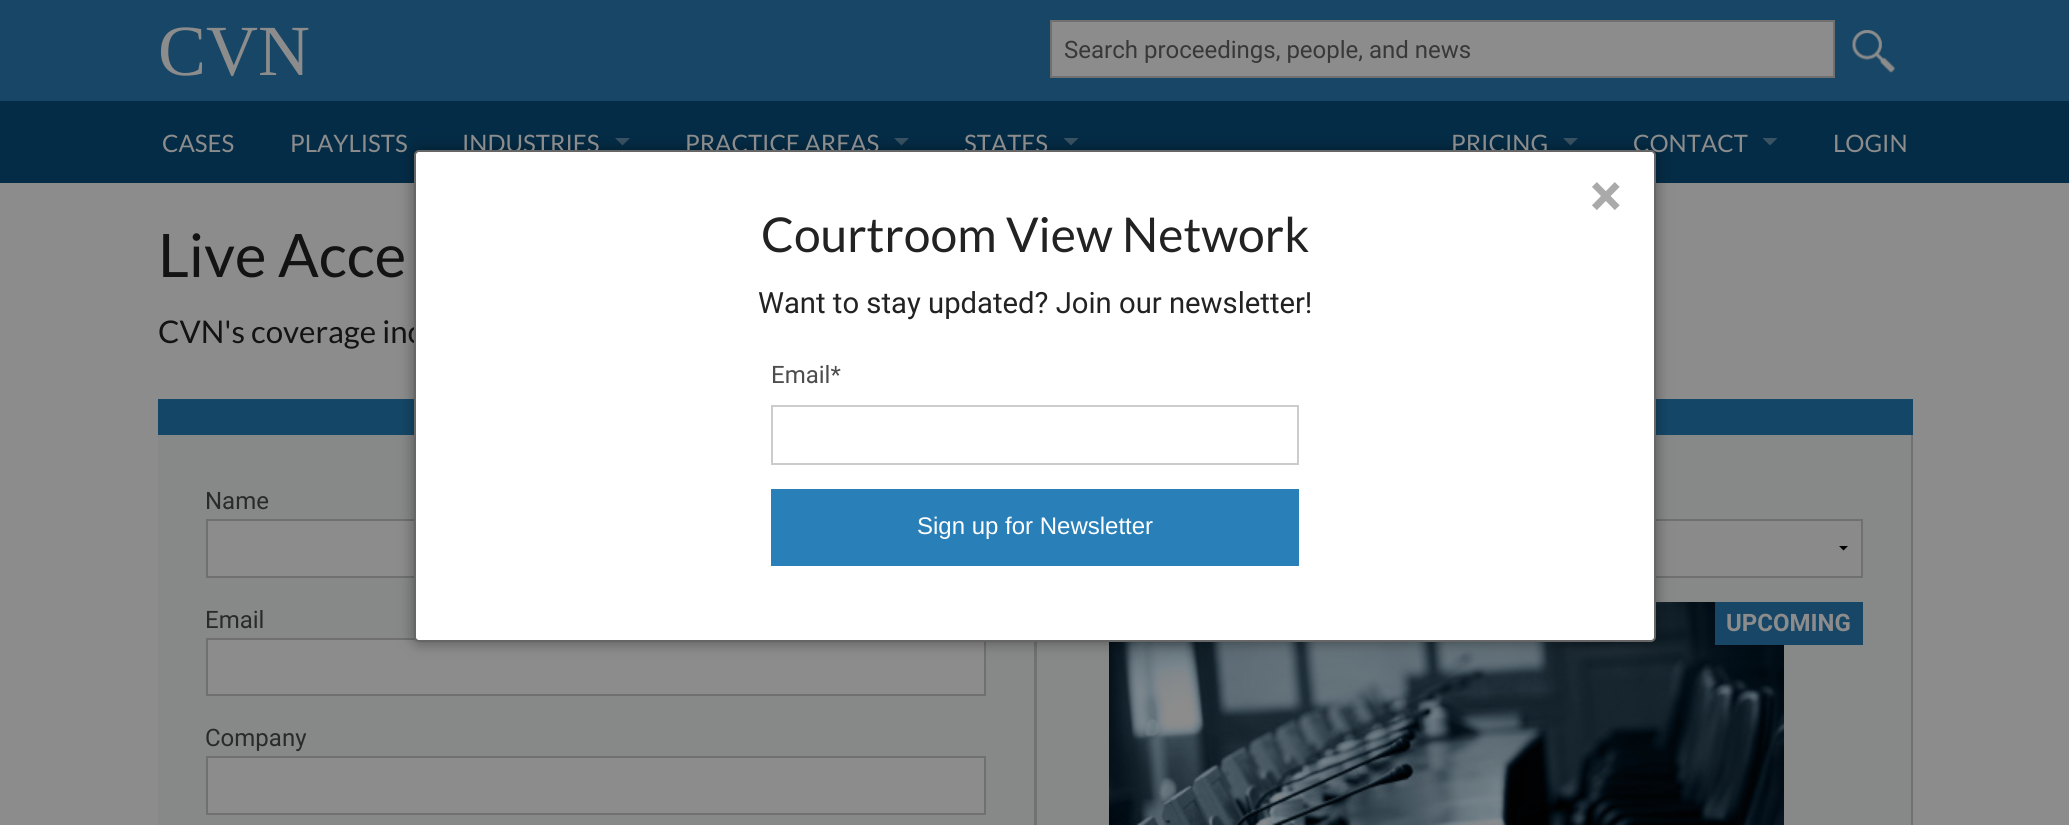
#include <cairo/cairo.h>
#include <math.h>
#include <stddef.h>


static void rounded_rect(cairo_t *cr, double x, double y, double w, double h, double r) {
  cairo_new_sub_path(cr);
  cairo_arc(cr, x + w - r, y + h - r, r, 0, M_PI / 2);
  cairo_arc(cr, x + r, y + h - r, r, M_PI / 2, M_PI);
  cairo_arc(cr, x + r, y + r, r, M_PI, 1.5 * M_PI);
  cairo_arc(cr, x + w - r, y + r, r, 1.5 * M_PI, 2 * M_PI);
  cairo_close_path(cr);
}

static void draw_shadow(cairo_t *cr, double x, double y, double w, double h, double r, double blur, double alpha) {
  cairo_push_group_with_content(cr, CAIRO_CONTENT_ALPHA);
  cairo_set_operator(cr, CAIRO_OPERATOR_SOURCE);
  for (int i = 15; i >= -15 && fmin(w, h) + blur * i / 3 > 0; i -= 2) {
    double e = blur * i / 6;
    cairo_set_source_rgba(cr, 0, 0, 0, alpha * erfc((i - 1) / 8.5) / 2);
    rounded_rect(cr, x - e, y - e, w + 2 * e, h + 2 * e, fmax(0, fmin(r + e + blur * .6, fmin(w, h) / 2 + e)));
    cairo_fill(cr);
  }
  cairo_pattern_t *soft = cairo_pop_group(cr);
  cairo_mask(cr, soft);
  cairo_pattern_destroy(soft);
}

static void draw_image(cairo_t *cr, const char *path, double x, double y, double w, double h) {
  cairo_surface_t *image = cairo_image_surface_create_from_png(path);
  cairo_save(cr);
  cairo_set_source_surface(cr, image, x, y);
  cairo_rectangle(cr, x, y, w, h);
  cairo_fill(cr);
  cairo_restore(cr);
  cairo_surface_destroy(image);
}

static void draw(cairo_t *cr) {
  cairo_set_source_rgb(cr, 140 / 255.0, 140 / 255.0, 140 / 255.0);
  cairo_paint(cr);
  cairo_set_source_rgb(cr, 23 / 255.0, 70 / 255.0, 102 / 255.0);
  cairo_rectangle(cr, 0, 0, 2069, 101);
  cairo_fill(cr);
  cairo_set_source_rgb(cr, 140 / 255.0, 140 / 255.0, 140 / 255.0);
  cairo_rectangle(cr, 1051, 21, 783, 56);
  cairo_fill_preserve(cr);
  cairo_set_source_rgb(cr, 112 / 255.0, 112 / 255.0, 112 / 255.0);
  cairo_stroke(cr);
  draw_image(cr, "images/1.png", 1852, 30, 43, 43);
  cairo_set_source_rgb(cr, 4 / 255.0, 44 / 255.0, 70 / 255.0);
  cairo_rectangle(cr, 0, 101, 2069, 82);
  cairo_fill(cr);
  cairo_set_source_rgb(cr, 58 / 255.0, 83 / 255.0, 98 / 255.0);
  cairo_new_path(cr);
  cairo_move_to(cr, 615, 138);
  cairo_line_to(cr, 630, 138);
  cairo_line_to(cr, 622.5, 145.5);
  cairo_close_path(cr);
  cairo_fill(cr);
  cairo_new_path(cr);
  cairo_move_to(cr, 894, 138);
  cairo_line_to(cr, 909, 138);
  cairo_line_to(cr, 901.5, 145.5);
  cairo_close_path(cr);
  cairo_fill(cr);
  cairo_new_path(cr);
  cairo_move_to(cr, 1063.5, 138);
  cairo_line_to(cr, 1078.5, 138);
  cairo_line_to(cr, 1071, 145.5);
  cairo_close_path(cr);
  cairo_fill(cr);
  cairo_new_path(cr);
  cairo_move_to(cr, 1563, 138);
  cairo_line_to(cr, 1578, 138);
  cairo_line_to(cr, 1570.5, 145.5);
  cairo_close_path(cr);
  cairo_fill(cr);
  cairo_new_path(cr);
  cairo_move_to(cr, 1762.5, 138);
  cairo_line_to(cr, 1777.5, 138);
  cairo_line_to(cr, 1770, 145.5);
  cairo_close_path(cr);
  cairo_fill(cr);
  cairo_set_source_rgb(cr, 20 / 255.0, 71 / 255.0, 103 / 255.0);
  cairo_rectangle(cr, 158, 399, 1755, 36);
  cairo_fill(cr);
  cairo_set_source_rgb(cr, 135 / 255.0, 136 / 255.0, 136 / 255.0);
  cairo_rectangle(cr, 158, 435, 876, 390);
  cairo_fill(cr);
  cairo_set_source_rgb(cr, 140 / 255.0, 140 / 255.0, 140 / 255.0);
  cairo_rectangle(cr, 208, 521, 206, 55);
  cairo_fill(cr);
  cairo_rectangle(cr, 207, 520, 778, 57);
  cairo_set_source_rgb(cr, 112 / 255.0, 112 / 255.0, 112 / 255.0);
  cairo_stroke(cr);
  cairo_set_source_rgb(cr, 140 / 255.0, 140 / 255.0, 140 / 255.0);
  cairo_rectangle(cr, 207, 639, 778, 56);
  cairo_fill_preserve(cr);
  cairo_set_source_rgb(cr, 112 / 255.0, 112 / 255.0, 112 / 255.0);
  cairo_stroke(cr);
  cairo_set_source_rgb(cr, 140 / 255.0, 140 / 255.0, 140 / 255.0);
  cairo_rectangle(cr, 207, 757, 778, 57);
  cairo_fill_preserve(cr);
  cairo_set_source_rgb(cr, 112 / 255.0, 112 / 255.0, 112 / 255.0);
  cairo_stroke(cr);
  cairo_set_source_rgb(cr, 135 / 255.0, 136 / 255.0, 136 / 255.0);
  cairo_rectangle(cr, 1037, 435, 874, 390);
  cairo_fill(cr);
  cairo_set_source_rgb(cr, 112 / 255.0, 113 / 255.0, 114 / 255.0);
  cairo_rectangle(cr, 1911, 435, 2, 390);
  cairo_fill(cr);
  cairo_rectangle(cr, 1034, 642, 3, 183);
  cairo_fill(cr);
  cairo_set_source_rgb(cr, 138 / 255.0, 138 / 255.0, 138 / 255.0);
  cairo_rectangle(cr, 1656, 521, 205, 55);
  cairo_fill(cr);
  cairo_set_source_rgb(cr, 0, 0, 0);
  cairo_new_path(cr);
  cairo_move_to(cr, 1848, 546);
  cairo_line_to(cr, 1843.5, 550.5);
  cairo_line_to(cr, 1839, 546);
  cairo_close_path(cr);
  cairo_fill(cr);
  cairo_rectangle(cr, 1086, 520, 776, 57);
  cairo_set_source_rgb(cr, 112 / 255.0, 112 / 255.0, 112 / 255.0);
  cairo_stroke(cr);
  draw_image(cr, "images/2.png", 1109, 602, 675, 223);
  cairo_set_source_rgb(cr, 23 / 255.0, 70 / 255.0, 102 / 255.0);
  cairo_rectangle(cr, 1715, 602, 148, 43);
  cairo_fill(cr);
  cairo_set_source_rgb(cr, 0, 0, 0);
  draw_shadow(cr, 414, 150, 1242, 492, 5, 7.5, 0.4);
  cairo_select_font_face(cr, "Liberation Serif", CAIRO_FONT_SLANT_NORMAL, CAIRO_FONT_WEIGHT_NORMAL);
  cairo_set_font_size(cr, 72);
  cairo_set_source_rgb(cr, 140 / 255.0, 140 / 255.0, 140 / 255.0);
  cairo_move_to(cr, 158, 75);
  cairo_show_text(cr, "CVN");
  cairo_select_font_face(cr, "Roboto", CAIRO_FONT_SLANT_NORMAL, CAIRO_FONT_WEIGHT_NORMAL);
  cairo_set_font_size(cr, 24);
  cairo_set_source_rgb(cr, 56 / 255.0, 56 / 255.0, 56 / 255.0);
  cairo_move_to(cr, 1064, 58);
  cairo_show_text(cr, "Search proceedings, people, and news");
  cairo_select_font_face(cr, "Lato", CAIRO_FONT_SLANT_NORMAL, CAIRO_FONT_WEIGHT_NORMAL);
  cairo_set_source_rgb(cr, 140 / 255.0, 140 / 255.0, 140 / 255.0);
  cairo_move_to(cr, 162, 152);
  cairo_show_text(cr, "CASES");
  cairo_move_to(cr, 290, 152);
  cairo_show_text(cr, "PLAYLISTS");
  cairo_move_to(cr, 462, 152);
  cairo_show_text(cr, "INDUSTRIES");
  cairo_move_to(cr, 685, 152);
  cairo_show_text(cr, "PRACTICE AREAS");
  cairo_move_to(cr, 964, 152);
  cairo_show_text(cr, "STATES");
  cairo_move_to(cr, 1451, 152);
  cairo_show_text(cr, "PRICING");
  cairo_move_to(cr, 1633, 152);
  cairo_show_text(cr, "CONTACT");
  cairo_move_to(cr, 1833, 152);
  cairo_show_text(cr, "LOGIN");
  cairo_set_font_size(cr, 60);
  cairo_set_source_rgb(cr, 19 / 255.0, 19 / 255.0, 19 / 255.0);
  cairo_move_to(cr, 158, 277);
  cairo_show_text(cr, "Live Acce");
  cairo_set_font_size(cr, 31.25);
  cairo_move_to(cr, 158, 343);
  cairo_show_text(cr, "CVN's coverage inc");
  cairo_select_font_face(cr, "Roboto", CAIRO_FONT_SLANT_NORMAL, CAIRO_FONT_WEIGHT_NORMAL);
  cairo_set_font_size(cr, 24);
  cairo_set_source_rgb(cr, 42 / 255.0, 42 / 255.0, 42 / 255.0);
  cairo_move_to(cr, 205, 509);
  cairo_show_text(cr, "Name");
  cairo_move_to(cr, 205, 628);
  cairo_show_text(cr, "Email");
  cairo_move_to(cr, 205, 746);
  cairo_show_text(cr, "Company");
  cairo_select_font_face(cr, "Roboto", CAIRO_FONT_SLANT_NORMAL, CAIRO_FONT_WEIGHT_BOLD);
  cairo_set_source_rgb(cr, 140 / 255.0, 140 / 255.0, 140 / 255.0);
  cairo_move_to(cr, 1726, 631);
  cairo_show_text(cr, "UPCOMING");
  cairo_set_source_rgb(cr, 1, 1, 1);
  rounded_rect(cr, 415, 151, 1240, 490, 4);
  cairo_fill_preserve(cr);
  cairo_set_source_rgb(cr, 102 / 255.0, 102 / 255.0, 102 / 255.0);
  cairo_stroke(cr);
  cairo_set_font_size(cr, 60);
  cairo_set_source_rgb(cr, 170 / 255.0, 170 / 255.0, 170 / 255.0);
  cairo_move_to(cr, 1590, 216);
  cairo_show_text(cr, "×");
  cairo_select_font_face(cr, "Lato", CAIRO_FONT_SLANT_NORMAL, CAIRO_FONT_WEIGHT_NORMAL);
  cairo_set_font_size(cr, 48);
  cairo_set_source_rgb(cr, 34 / 255.0, 34 / 255.0, 34 / 255.0);
  cairo_move_to(cr, 761, 252);
  cairo_show_text(cr, "Courtroom View Network");
  cairo_select_font_face(cr, "Roboto", CAIRO_FONT_SLANT_NORMAL, CAIRO_FONT_WEIGHT_NORMAL);
  cairo_set_font_size(cr, 29.25);
  cairo_move_to(cr, 758, 313);
  cairo_show_text(cr, "Want to stay updated? Join our newsletter!");
  cairo_set_font_size(cr, 24);
  cairo_set_source_rgb(cr, 77 / 255.0, 77 / 255.0, 77 / 255.0);
  cairo_move_to(cr, 771, 383);
  cairo_show_text(cr, "Email*");
  cairo_rectangle(cr, 772, 406, 526, 58);
  cairo_set_source_rgb(cr, 204 / 255.0, 204 / 255.0, 204 / 255.0);
  cairo_stroke(cr);
  cairo_set_source_rgb(cr, 41 / 255.0, 128 / 255.0, 185 / 255.0);
  cairo_rectangle(cr, 771, 489, 528, 77);
  cairo_fill(cr);
  cairo_select_font_face(cr, "Liberation Sans", CAIRO_FONT_SLANT_NORMAL, CAIRO_FONT_WEIGHT_NORMAL);
  cairo_set_source_rgb(cr, 1, 1, 1);
  cairo_move_to(cr, 917, 534);
  cairo_show_text(cr, "Sign up for Newsletter");
}

int main(void) {
  cairo_surface_t *surface = cairo_image_surface_create(CAIRO_FORMAT_RGB24, 2069, 825);
  cairo_t *cr = cairo_create(surface);
  cairo_font_options_t *options = cairo_font_options_create();
  cairo_font_options_set_hint_metrics(options, CAIRO_HINT_METRICS_OFF);
  cairo_font_options_set_hint_style(options, CAIRO_HINT_STYLE_NONE);
  cairo_set_font_options(cr, options);
  cairo_set_miter_limit(cr, 4);
  draw(cr);
  cairo_surface_write_to_png(surface, "out.png");
  cairo_font_options_destroy(options);
  cairo_destroy(cr);
  cairo_surface_destroy(surface);
  return 0;
}
